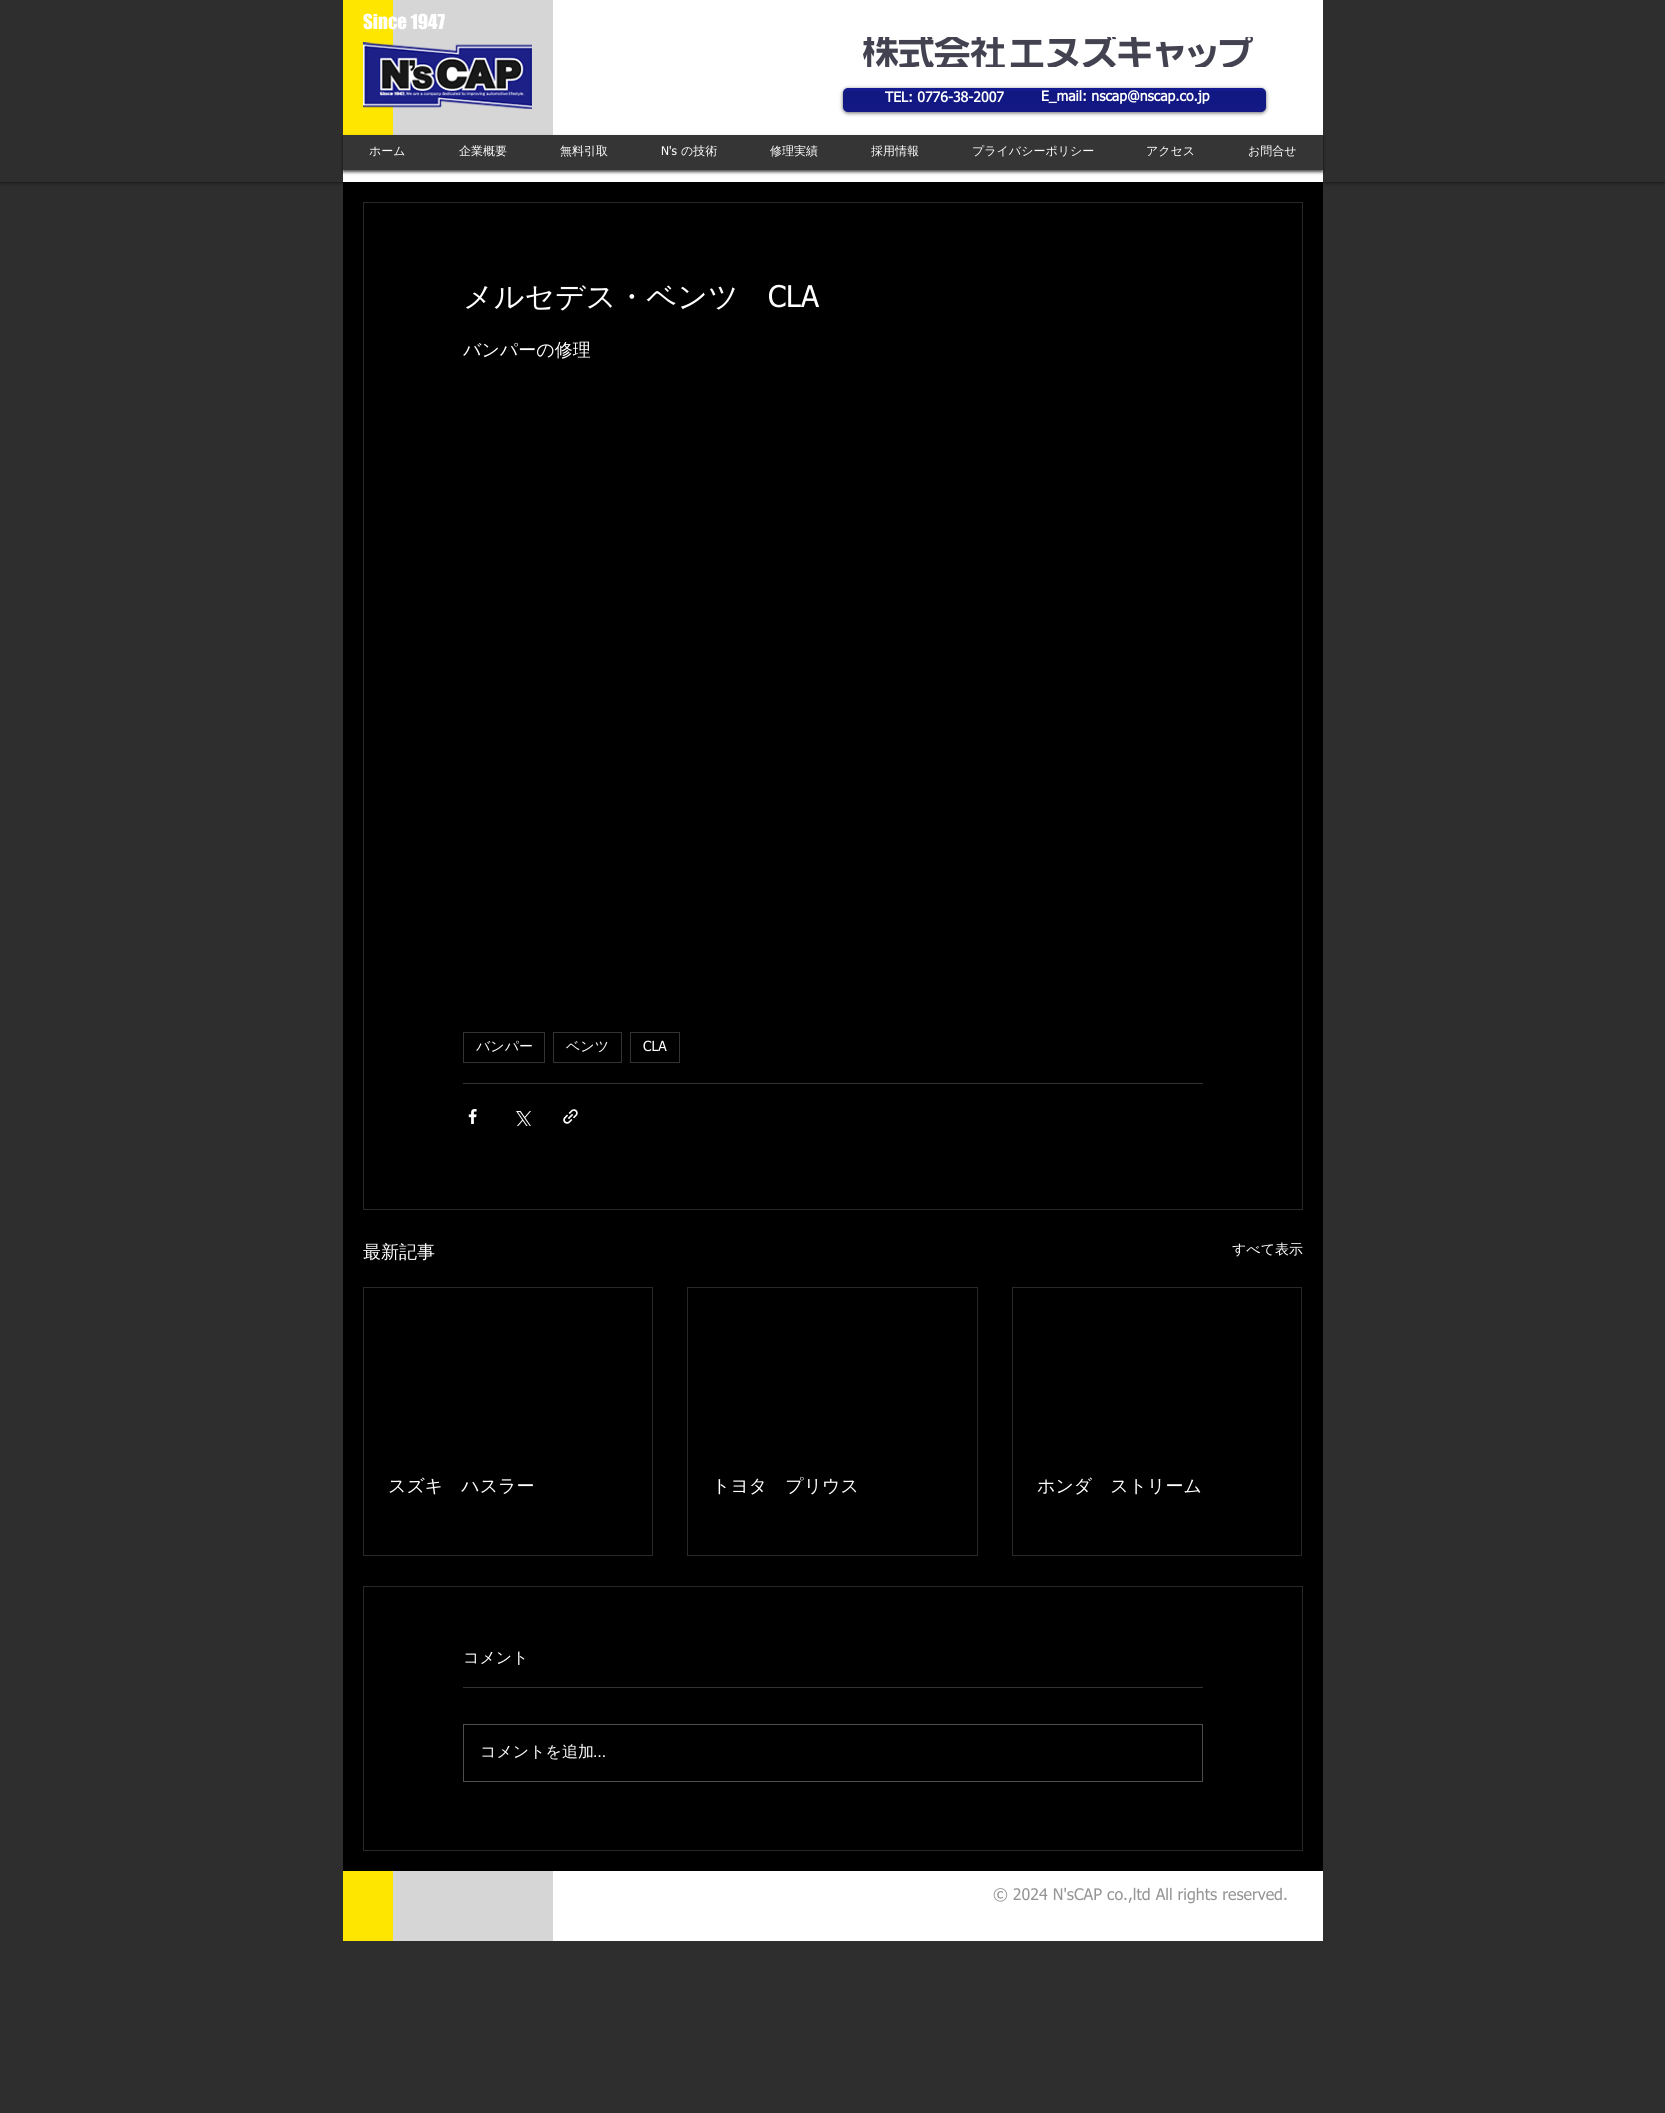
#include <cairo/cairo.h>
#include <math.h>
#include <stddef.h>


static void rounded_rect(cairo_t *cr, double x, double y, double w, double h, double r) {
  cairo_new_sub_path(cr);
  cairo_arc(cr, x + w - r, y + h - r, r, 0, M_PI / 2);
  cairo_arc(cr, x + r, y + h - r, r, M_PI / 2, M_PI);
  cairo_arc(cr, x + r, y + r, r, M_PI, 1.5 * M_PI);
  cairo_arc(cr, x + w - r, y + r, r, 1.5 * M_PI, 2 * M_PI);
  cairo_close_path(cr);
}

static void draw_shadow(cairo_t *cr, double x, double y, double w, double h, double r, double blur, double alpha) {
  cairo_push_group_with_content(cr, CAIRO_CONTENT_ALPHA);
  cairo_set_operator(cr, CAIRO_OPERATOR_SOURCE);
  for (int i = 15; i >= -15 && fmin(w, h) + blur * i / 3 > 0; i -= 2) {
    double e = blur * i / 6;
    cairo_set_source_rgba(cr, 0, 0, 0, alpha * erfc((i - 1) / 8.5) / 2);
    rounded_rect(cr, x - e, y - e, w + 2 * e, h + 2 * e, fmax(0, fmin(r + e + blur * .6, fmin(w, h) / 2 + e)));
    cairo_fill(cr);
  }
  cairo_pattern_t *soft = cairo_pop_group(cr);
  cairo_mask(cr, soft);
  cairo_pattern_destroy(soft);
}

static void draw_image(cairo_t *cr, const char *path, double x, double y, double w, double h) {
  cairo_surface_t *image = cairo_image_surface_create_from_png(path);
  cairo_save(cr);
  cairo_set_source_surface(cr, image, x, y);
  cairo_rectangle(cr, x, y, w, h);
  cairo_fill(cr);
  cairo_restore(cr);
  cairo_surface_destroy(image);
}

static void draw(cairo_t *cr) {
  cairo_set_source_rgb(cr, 47 / 255.0, 46 / 255.0, 46 / 255.0);
  cairo_paint(cr);
  cairo_save(cr);
  cairo_rectangle(cr, 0, 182, 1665, 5);
  cairo_clip(cr);
  cairo_set_source_rgb(cr, 0, 0, 0);
  draw_shadow(cr, 0, 0, 1665, 182, 0, 2.5, 0.7);
  cairo_restore(cr);
  cairo_set_source_rgb(cr, 1, 1, 1);
  cairo_rectangle(cr, 343, 0, 980, 182);
  cairo_fill(cr);
  cairo_set_source_rgb(cr, 1, 230 / 255.0, 0);
  cairo_rectangle(cr, 343, 0, 50, 135);
  cairo_fill(cr);
  cairo_set_source_rgb(cr, 214 / 255.0, 214 / 255.0, 214 / 255.0);
  cairo_rectangle(cr, 393, 0, 160, 135);
  cairo_fill(cr);
  draw_image(cr, "images/1.png", 363, 42, 169, 67);
  draw_image(cr, "images/2.png", 863, 37, 390, 30);
  cairo_set_source_rgb(cr, 0, 0, 0);
  draw_shadow(cr, 843, 89, 423, 24, 5, 2, 0.6);
  cairo_set_source_rgb(cr, 20 / 255.0, 26 / 255.0, 143 / 255.0);
  rounded_rect(cr, 843, 88, 423, 24, 5);
  cairo_fill(cr);
  draw_image(cr, "images/3.png", 843, 91, 423, 21);
  cairo_set_source_rgb(cr, 0, 0, 0);
  draw_shadow(cr, 343, 137, 980, 35, 0, 1.5, 0.7);
  cairo_set_source_rgb(cr, 53 / 255.0, 53 / 255.0, 53 / 255.0);
  cairo_rectangle(cr, 343, 135, 980, 35);
  cairo_fill(cr);
  cairo_set_source_rgb(cr, 0, 0, 0);
  cairo_rectangle(cr, 343, 182, 980, 1689);
  cairo_fill(cr);
  cairo_rectangle(cr, 363.5, 202.5, 939, 1007);
  cairo_set_source_rgb(cr, 40 / 255.0, 40 / 255.0, 40 / 255.0);
  cairo_set_line_width(cr, 1);
  cairo_stroke(cr);
  cairo_rectangle(cr, 463.5, 1032.5, 81, 30);
  cairo_set_source_rgb(cr, 51 / 255.0, 51 / 255.0, 51 / 255.0);
  cairo_stroke(cr);
  cairo_rectangle(cr, 553.5, 1032.5, 68, 30);
  cairo_stroke(cr);
  cairo_rectangle(cr, 630.5, 1032.5, 49, 30);
  cairo_stroke(cr);
  cairo_rectangle(cr, 463, 1083, 740, 1);
  cairo_fill(cr);
  draw_image(cr, "images/4.png", 468, 1109, 9, 15);
  draw_image(cr, "images/5.png", 516, 1111, 15, 15);
  draw_image(cr, "images/6.png", 563, 1109, 15, 15);
  cairo_rectangle(cr, 363.5, 1287.5, 289, 268);
  cairo_set_source_rgb(cr, 40 / 255.0, 40 / 255.0, 40 / 255.0);
  cairo_stroke(cr);
  cairo_rectangle(cr, 687.5, 1287.5, 290, 268);
  cairo_stroke(cr);
  cairo_rectangle(cr, 1012.5, 1287.5, 289, 268);
  cairo_stroke(cr);
  cairo_rectangle(cr, 363.5, 1586.5, 939, 264);
  cairo_stroke(cr);
  cairo_set_source_rgb(cr, 51 / 255.0, 51 / 255.0, 51 / 255.0);
  cairo_rectangle(cr, 463, 1687, 740, 1);
  cairo_fill(cr);
  cairo_rectangle(cr, 463.5, 1724.5, 739, 57);
  cairo_set_source_rgb(cr, 77 / 255.0, 77 / 255.0, 77 / 255.0);
  cairo_stroke(cr);
  cairo_set_source_rgb(cr, 1, 1, 1);
  cairo_rectangle(cr, 553, 1871, 770, 70);
  cairo_fill(cr);
  cairo_set_source_rgb(cr, 1, 230 / 255.0, 0);
  cairo_rectangle(cr, 343, 1871, 50, 70);
  cairo_fill(cr);
  cairo_set_source_rgb(cr, 214 / 255.0, 214 / 255.0, 214 / 255.0);
  cairo_rectangle(cr, 393, 1871, 160, 70);
  cairo_fill(cr);
  cairo_select_font_face(cr, "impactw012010", CAIRO_FONT_SLANT_NORMAL, CAIRO_FONT_WEIGHT_NORMAL);
  cairo_set_font_size(cr, 19);
  cairo_set_source_rgb(cr, 1, 1, 1);
  cairo_move_to(cr, 363, 29);
  cairo_show_text(cr, "Since 1947");
  cairo_select_font_face(cr, "tahoma", CAIRO_FONT_SLANT_NORMAL, CAIRO_FONT_WEIGHT_BOLD);
  cairo_set_font_size(cr, 14);
  cairo_move_to(cr, 885, 102);
  cairo_show_text(cr, "TEL: 0776-38-2007");
  cairo_move_to(cr, 1041, 101);
  cairo_show_text(cr, "E_mail: nscap@nscap.co.jp");
  cairo_select_font_face(cr, "WenQuanYi Zen Hei Medium", CAIRO_FONT_SLANT_NORMAL, CAIRO_FONT_WEIGHT_NORMAL);
  cairo_set_font_size(cr, 12);
  cairo_move_to(cr, 369, 155);
  cairo_show_text(cr, "ホーム");
  cairo_move_to(cr, 459, 155);
  cairo_show_text(cr, "企業概要");
  cairo_move_to(cr, 560, 155);
  cairo_show_text(cr, "無料引取");
  cairo_select_font_face(cr, "tahoma", CAIRO_FONT_SLANT_NORMAL, CAIRO_FONT_WEIGHT_NORMAL);
  cairo_move_to(cr, 661, 155);
  cairo_show_text(cr, "N's");
  cairo_select_font_face(cr, "WenQuanYi Zen Hei Medium", CAIRO_FONT_SLANT_NORMAL, CAIRO_FONT_WEIGHT_NORMAL);
  cairo_move_to(cr, 681, 155);
  cairo_show_text(cr, "の技術");
  cairo_move_to(cr, 770, 155);
  cairo_show_text(cr, "修理実績");
  cairo_move_to(cr, 871, 155);
  cairo_show_text(cr, "採用情報");
  cairo_move_to(cr, 972, 155);
  cairo_show_text(cr, "プライバシーポリシー");
  cairo_move_to(cr, 1146, 155);
  cairo_show_text(cr, "アクセス");
  cairo_move_to(cr, 1248, 155);
  cairo_show_text(cr, "お問合せ");
  cairo_set_font_size(cr, 30);
  cairo_move_to(cr, 463, 307);
  cairo_show_text(cr, "メルセデス・ベンツ");
  cairo_select_font_face(cr, "tahoma", CAIRO_FONT_SLANT_NORMAL, CAIRO_FONT_WEIGHT_NORMAL);
  cairo_move_to(cr, 768, 307);
  cairo_show_text(cr, "CLA");
  cairo_select_font_face(cr, "WenQuanYi Zen Hei Medium", CAIRO_FONT_SLANT_NORMAL, CAIRO_FONT_WEIGHT_NORMAL);
  cairo_set_font_size(cr, 18);
  cairo_move_to(cr, 463, 356);
  cairo_show_text(cr, "バンパーの修理");
  cairo_set_font_size(cr, 14);
  cairo_move_to(cr, 476, 1051);
  cairo_show_text(cr, "バンパー");
  cairo_move_to(cr, 566, 1051);
  cairo_show_text(cr, "ベンツ");
  cairo_select_font_face(cr, "tahoma", CAIRO_FONT_SLANT_NORMAL, CAIRO_FONT_WEIGHT_NORMAL);
  cairo_move_to(cr, 643, 1051);
  cairo_show_text(cr, "CLA");
  cairo_select_font_face(cr, "WenQuanYi Zen Hei Medium", CAIRO_FONT_SLANT_NORMAL, CAIRO_FONT_WEIGHT_NORMAL);
  cairo_set_font_size(cr, 18);
  cairo_move_to(cr, 363, 1258);
  cairo_show_text(cr, "最新記事");
  cairo_set_font_size(cr, 14);
  cairo_move_to(cr, 1232, 1254);
  cairo_show_text(cr, "すべて表示");
  cairo_set_font_size(cr, 18);
  cairo_move_to(cr, 388, 1492);
  cairo_show_text(cr, "スズキ　ハスラー");
  cairo_move_to(cr, 712, 1492);
  cairo_show_text(cr, "トヨタ　プリウス");
  cairo_move_to(cr, 1037, 1492);
  cairo_show_text(cr, "ホンダ　ストリーム");
  cairo_set_font_size(cr, 16);
  cairo_move_to(cr, 463, 1663);
  cairo_show_text(cr, "コメント");
  cairo_move_to(cr, 480, 1757);
  cairo_show_text(cr, "コメントを追加");
  cairo_select_font_face(cr, "tahoma", CAIRO_FONT_SLANT_NORMAL, CAIRO_FONT_WEIGHT_NORMAL);
  cairo_move_to(cr, 593, 1757);
  cairo_show_text(cr, "…");
  cairo_set_source_rgb(cr, 149 / 255.0, 149 / 255.0, 149 / 255.0);
  cairo_move_to(cr, 993, 1900);
  cairo_show_text(cr, "© 2024 N'sCAP co.,ltd All rights reserved.");
}

int main(void) {
  cairo_surface_t *surface = cairo_image_surface_create(CAIRO_FORMAT_RGB24, 1665, 2113);
  cairo_t *cr = cairo_create(surface);
  cairo_font_options_t *options = cairo_font_options_create();
  cairo_font_options_set_hint_metrics(options, CAIRO_HINT_METRICS_OFF);
  cairo_font_options_set_hint_style(options, CAIRO_HINT_STYLE_NONE);
  cairo_set_font_options(cr, options);
  cairo_set_miter_limit(cr, 4);
  draw(cr);
  cairo_surface_write_to_png(surface, "out.png");
  cairo_font_options_destroy(options);
  cairo_destroy(cr);
  cairo_surface_destroy(surface);
  return 0;
}
